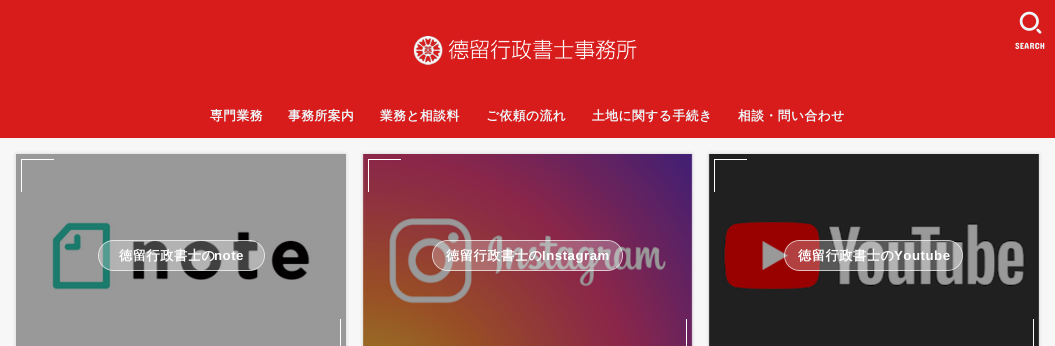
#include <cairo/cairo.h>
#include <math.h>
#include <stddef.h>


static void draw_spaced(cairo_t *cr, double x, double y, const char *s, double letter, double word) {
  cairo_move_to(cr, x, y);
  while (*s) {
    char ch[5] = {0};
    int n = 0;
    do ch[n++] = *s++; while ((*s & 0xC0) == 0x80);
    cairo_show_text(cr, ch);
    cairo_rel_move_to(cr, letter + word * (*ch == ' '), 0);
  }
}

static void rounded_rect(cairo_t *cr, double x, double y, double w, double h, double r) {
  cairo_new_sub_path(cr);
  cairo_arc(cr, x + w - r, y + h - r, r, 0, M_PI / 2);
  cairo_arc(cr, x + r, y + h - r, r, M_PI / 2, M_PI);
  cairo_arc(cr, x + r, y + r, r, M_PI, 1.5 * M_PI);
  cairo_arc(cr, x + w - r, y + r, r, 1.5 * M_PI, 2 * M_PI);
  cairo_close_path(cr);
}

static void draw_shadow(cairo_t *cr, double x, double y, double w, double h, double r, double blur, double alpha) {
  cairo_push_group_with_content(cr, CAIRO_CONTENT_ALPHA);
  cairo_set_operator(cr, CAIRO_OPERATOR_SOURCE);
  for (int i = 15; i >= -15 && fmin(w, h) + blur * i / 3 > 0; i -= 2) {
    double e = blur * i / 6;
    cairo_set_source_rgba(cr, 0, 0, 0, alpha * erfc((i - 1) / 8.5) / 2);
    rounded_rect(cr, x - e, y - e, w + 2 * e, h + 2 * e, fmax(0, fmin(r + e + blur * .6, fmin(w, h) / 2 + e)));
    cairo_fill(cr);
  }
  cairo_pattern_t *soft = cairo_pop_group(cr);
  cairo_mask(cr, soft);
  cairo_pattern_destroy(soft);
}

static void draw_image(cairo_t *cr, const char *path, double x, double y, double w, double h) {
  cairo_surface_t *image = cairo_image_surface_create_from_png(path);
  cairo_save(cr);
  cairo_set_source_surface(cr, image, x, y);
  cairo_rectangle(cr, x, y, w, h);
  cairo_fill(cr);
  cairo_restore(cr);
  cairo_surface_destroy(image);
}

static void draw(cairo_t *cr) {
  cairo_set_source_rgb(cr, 247 / 255.0, 247 / 255.0, 247 / 255.0);
  cairo_paint(cr);
  cairo_set_source_rgb(cr, 216 / 255.0, 28 / 255.0, 28 / 255.0);
  cairo_rectangle(cr, 0, 0, 1055, 138);
  cairo_fill(cr);
  draw_image(cr, "images/1.png", 413, 36, 224, 29);
  draw_image(cr, "images/2.png", 1019, 11, 23, 23);
  cairo_set_source_rgb(cr, 0, 0, 0);
  draw_shadow(cr, 16, 154, 330, 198, 0, 2, 0.15);
  draw_image(cr, "images/3.png", 16, 154, 330, 192);
  cairo_set_source_rgb(cr, 1, 1, 1);
  cairo_rectangle(cr, 21, 159, 33, 1);
  cairo_fill(cr);
  cairo_rectangle(cr, 21, 159, 1, 33);
  cairo_fill(cr);
  cairo_set_source_rgba(cr, 1, 1, 1, 0.25);
  rounded_rect(cr, 99, 241, 165, 29, 14.5);
  cairo_fill(cr);
  rounded_rect(cr, 98.5, 240.5, 166, 30, 15);
  cairo_set_source_rgba(cr, 1, 1, 1, 0.75);
  cairo_set_line_width(cr, 1);
  cairo_stroke(cr);
  cairo_set_source_rgb(cr, 1, 1, 1);
  cairo_rectangle(cr, 340, 319, 1, 27);
  cairo_fill(cr);
  cairo_set_source_rgb(cr, 0, 0, 0);
  draw_shadow(cr, 363, 154, 329, 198, 0, 2, 0.15);
  draw_image(cr, "images/4.png", 362, 154, 331, 192);
  cairo_set_source_rgb(cr, 1, 1, 1);
  cairo_rectangle(cr, 368, 159, 33, 1);
  cairo_fill(cr);
  cairo_rectangle(cr, 368, 159, 1, 33);
  cairo_fill(cr);
  cairo_set_source_rgba(cr, 1, 1, 1, 0.25);
  rounded_rect(cr, 433, 241, 189, 29, 14.5);
  cairo_fill(cr);
  rounded_rect(cr, 432.5, 240.5, 190, 30, 15);
  cairo_set_source_rgba(cr, 1, 1, 1, 0.75);
  cairo_stroke(cr);
  cairo_set_source_rgb(cr, 1, 1, 1);
  cairo_rectangle(cr, 686, 319, 1, 27);
  cairo_fill(cr);
  cairo_set_source_rgb(cr, 0, 0, 0);
  draw_shadow(cr, 709, 154, 330, 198, 0, 2, 0.15);
  draw_image(cr, "images/5.png", 708, 154, 331, 192);
  cairo_set_source_rgb(cr, 1, 1, 1);
  cairo_rectangle(cr, 714, 159, 33, 1);
  cairo_fill(cr);
  cairo_rectangle(cr, 714, 159, 1, 33);
  cairo_fill(cr);
  cairo_set_source_rgba(cr, 1, 1, 1, 0.25);
  rounded_rect(cr, 785, 241, 177, 29, 14.5);
  cairo_fill(cr);
  rounded_rect(cr, 784.5, 240.5, 178, 30, 15);
  cairo_set_source_rgba(cr, 1, 1, 1, 0.75);
  cairo_stroke(cr);
  cairo_set_source_rgb(cr, 1, 1, 1);
  cairo_rectangle(cr, 1033, 319, 1, 27);
  cairo_fill(cr);
  cairo_select_font_face(cr, "Concert One", CAIRO_FONT_SLANT_NORMAL, CAIRO_FONT_WEIGHT_NORMAL);
  cairo_set_font_size(cr, 9);
  cairo_set_source_rgb(cr, 237 / 255.0, 249 / 255.0, 252 / 255.0);
  draw_spaced(cr, 1015, 49, "SEARCH", 0.25, 0);
  cairo_select_font_face(cr, "WenQuanYi Zen Hei", CAIRO_FONT_SLANT_NORMAL, CAIRO_FONT_WEIGHT_BOLD);
  cairo_set_font_size(cr, 12.75);
  draw_spaced(cr, 210, 120, "専門業務", 0.5, 0);
  draw_spaced(cr, 288, 120, "事務所案内", 0.5, 0);
  draw_spaced(cr, 380, 120, "業務と相談料", 0.5, 0);
  draw_spaced(cr, 486, 120, "ご依頼の流れ", 0.5, 0);
  draw_spaced(cr, 592, 120, "土地に関する手続き", 0.5, 0);
  draw_spaced(cr, 738, 120, "相談・問い合わせ", 0.5, 0);
  cairo_set_font_size(cr, 13.25);
  cairo_set_source_rgb(cr, 1, 1, 1);
  draw_spaced(cr, 119, 260, "徳留行政書士の", 0.5, 0);
  cairo_select_font_face(cr, "Liberation Sans", CAIRO_FONT_SLANT_NORMAL, CAIRO_FONT_WEIGHT_BOLD);
  draw_spaced(cr, 214, 260, "note", 0.5, 0);
  cairo_select_font_face(cr, "WenQuanYi Zen Hei", CAIRO_FONT_SLANT_NORMAL, CAIRO_FONT_WEIGHT_BOLD);
  draw_spaced(cr, 446, 260, "徳留行政書士の", 0.5, 0);
  cairo_select_font_face(cr, "Liberation Sans", CAIRO_FONT_SLANT_NORMAL, CAIRO_FONT_WEIGHT_BOLD);
  draw_spaced(cr, 542, 260, "Instagram", 0.5, 0);
  cairo_select_font_face(cr, "WenQuanYi Zen Hei", CAIRO_FONT_SLANT_NORMAL, CAIRO_FONT_WEIGHT_BOLD);
  draw_spaced(cr, 798, 260, "徳留行政書士の", 0.5, 0);
  cairo_select_font_face(cr, "Liberation Sans", CAIRO_FONT_SLANT_NORMAL, CAIRO_FONT_WEIGHT_BOLD);
  draw_spaced(cr, 894, 260, "Youtube", 0.5, 0);
}

int main(void) {
  cairo_surface_t *surface = cairo_image_surface_create(CAIRO_FORMAT_RGB24, 1055, 346);
  cairo_t *cr = cairo_create(surface);
  cairo_font_options_t *options = cairo_font_options_create();
  cairo_font_options_set_hint_metrics(options, CAIRO_HINT_METRICS_OFF);
  cairo_font_options_set_hint_style(options, CAIRO_HINT_STYLE_NONE);
  cairo_set_font_options(cr, options);
  cairo_set_miter_limit(cr, 4);
  draw(cr);
  cairo_surface_write_to_png(surface, "out.png");
  cairo_font_options_destroy(options);
  cairo_destroy(cr);
  cairo_surface_destroy(surface);
  return 0;
}
